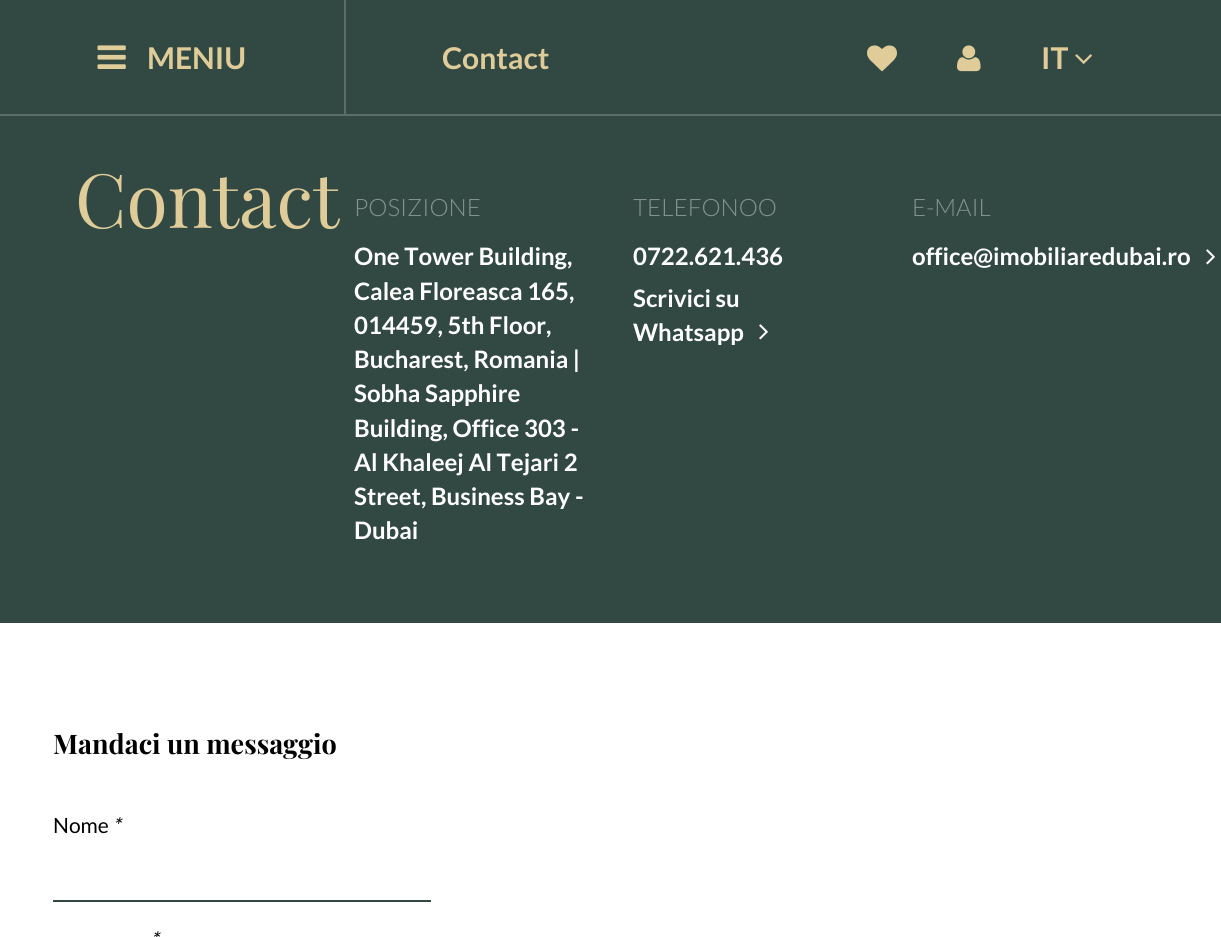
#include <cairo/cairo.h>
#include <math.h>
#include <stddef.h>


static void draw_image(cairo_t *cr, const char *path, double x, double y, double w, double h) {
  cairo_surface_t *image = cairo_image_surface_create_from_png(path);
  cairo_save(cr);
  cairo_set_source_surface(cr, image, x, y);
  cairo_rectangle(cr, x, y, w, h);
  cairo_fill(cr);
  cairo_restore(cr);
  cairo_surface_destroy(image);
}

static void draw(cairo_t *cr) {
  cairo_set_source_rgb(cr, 50 / 255.0, 73 / 255.0, 67 / 255.0);
  cairo_paint(cr);
  cairo_set_source_rgb(cr, 91 / 255.0, 109 / 255.0, 105 / 255.0);
  cairo_rectangle(cr, 0, 114, 1221, 2);
  cairo_fill(cr);
  cairo_rectangle(cr, 344, 0, 2, 114);
  cairo_fill(cr);
  draw_image(cr, "images/1.png", 97, 45, 29, 24);
  draw_image(cr, "images/2.png", 867, 45, 30, 27);
  draw_image(cr, "images/3.png", 957, 45, 24, 27);
  draw_image(cr, "images/4.png", 1075, 54, 17, 10);
  draw_image(cr, "images/5.png", 759, 324, 9, 16);
  draw_image(cr, "images/5.png", 1206, 249, 9, 16);
  cairo_set_source_rgb(cr, 1, 1, 1);
  cairo_rectangle(cr, 0, 623, 1221, 314);
  cairo_fill(cr);
  cairo_set_source_rgb(cr, 50 / 255.0, 73 / 255.0, 67 / 255.0);
  cairo_rectangle(cr, 53, 900, 378, 2);
  cairo_fill(cr);
  cairo_select_font_face(cr, "Lato", CAIRO_FONT_SLANT_NORMAL, CAIRO_FONT_WEIGHT_BOLD);
  cairo_set_font_size(cr, 30);
  cairo_set_source_rgb(cr, 223 / 255.0, 204 / 255.0, 153 / 255.0);
  cairo_move_to(cr, 147, 69);
  cairo_show_text(cr, "MENIU");
  cairo_move_to(cr, 442, 69);
  cairo_show_text(cr, "Contact");
  cairo_move_to(cr, 1041, 69);
  cairo_show_text(cr, "IT");
  cairo_select_font_face(cr, "Playfair Display", CAIRO_FONT_SLANT_NORMAL, CAIRO_FONT_WEIGHT_NORMAL);
  cairo_set_font_size(cr, 75);
  cairo_move_to(cr, 75, 228);
  cairo_show_text(cr, "Contact");
  cairo_select_font_face(cr, "Lato Light", CAIRO_FONT_SLANT_NORMAL, CAIRO_FONT_WEIGHT_NORMAL);
  cairo_set_font_size(cr, 24);
  cairo_set_source_rgb(cr, 132 / 255.0, 146 / 255.0, 142 / 255.0);
  cairo_move_to(cr, 354, 216);
  cairo_show_text(cr, "POSIZIONE");
  cairo_select_font_face(cr, "Lato", CAIRO_FONT_SLANT_NORMAL, CAIRO_FONT_WEIGHT_BOLD);
  cairo_set_source_rgb(cr, 1, 1, 1);
  cairo_move_to(cr, 354, 265);
  cairo_show_text(cr, "One Tower Building,");
  cairo_move_to(cr, 354, 300);
  cairo_show_text(cr, "Calea Floreasca 165,");
  cairo_move_to(cr, 354, 334);
  cairo_show_text(cr, "014459, 5th Floor,");
  cairo_move_to(cr, 354, 368);
  cairo_show_text(cr, "Bucharest, Romania |");
  cairo_move_to(cr, 354, 402);
  cairo_show_text(cr, "Sobha Sapphire");
  cairo_move_to(cr, 354, 437);
  cairo_show_text(cr, "Building, Office 303 -");
  cairo_move_to(cr, 354, 471);
  cairo_show_text(cr, "Al Khaleej Al Tejari 2");
  cairo_move_to(cr, 354, 505);
  cairo_show_text(cr, "Street, Business Bay -");
  cairo_move_to(cr, 354, 539);
  cairo_show_text(cr, "Dubai");
  cairo_select_font_face(cr, "Lato Light", CAIRO_FONT_SLANT_NORMAL, CAIRO_FONT_WEIGHT_NORMAL);
  cairo_set_source_rgb(cr, 132 / 255.0, 146 / 255.0, 142 / 255.0);
  cairo_move_to(cr, 633, 216);
  cairo_show_text(cr, "TELEFONOO");
  cairo_select_font_face(cr, "Lato", CAIRO_FONT_SLANT_NORMAL, CAIRO_FONT_WEIGHT_BOLD);
  cairo_set_source_rgb(cr, 1, 1, 1);
  cairo_move_to(cr, 633, 265);
  cairo_show_text(cr, "0722.621.436");
  cairo_move_to(cr, 633, 307);
  cairo_show_text(cr, "Scrivici su");
  cairo_move_to(cr, 633, 341);
  cairo_show_text(cr, "Whatsapp");
  cairo_select_font_face(cr, "Lato Light", CAIRO_FONT_SLANT_NORMAL, CAIRO_FONT_WEIGHT_NORMAL);
  cairo_set_source_rgb(cr, 132 / 255.0, 146 / 255.0, 142 / 255.0);
  cairo_move_to(cr, 912, 216);
  cairo_show_text(cr, "E-MAIL");
  cairo_select_font_face(cr, "Lato", CAIRO_FONT_SLANT_NORMAL, CAIRO_FONT_WEIGHT_BOLD);
  cairo_set_source_rgb(cr, 1, 1, 1);
  cairo_move_to(cr, 912, 265);
  cairo_show_text(cr, "office@imobiliaredubai.ro");
  cairo_select_font_face(cr, "Playfair Display", CAIRO_FONT_SLANT_NORMAL, CAIRO_FONT_WEIGHT_BOLD);
  cairo_set_font_size(cr, 27);
  cairo_set_source_rgb(cr, 0, 0, 0);
  cairo_move_to(cr, 53, 754);
  cairo_show_text(cr, "Mandaci un messaggio");
  cairo_select_font_face(cr, "Lato", CAIRO_FONT_SLANT_NORMAL, CAIRO_FONT_WEIGHT_NORMAL);
  cairo_set_font_size(cr, 21);
  cairo_move_to(cr, 53, 833);
  cairo_show_text(cr, "Nome");
  cairo_select_font_face(cr, "Lato", CAIRO_FONT_SLANT_ITALIC, CAIRO_FONT_WEIGHT_NORMAL);
  cairo_move_to(cr, 112, 833);
  cairo_show_text(cr, "*");
  cairo_move_to(cr, 150, 947);
  cairo_show_text(cr, "*");
}

int main(void) {
  cairo_surface_t *surface = cairo_image_surface_create(CAIRO_FORMAT_RGB24, 1221, 937);
  cairo_t *cr = cairo_create(surface);
  cairo_font_options_t *options = cairo_font_options_create();
  cairo_font_options_set_hint_metrics(options, CAIRO_HINT_METRICS_OFF);
  cairo_font_options_set_hint_style(options, CAIRO_HINT_STYLE_NONE);
  cairo_set_font_options(cr, options);
  cairo_set_miter_limit(cr, 4);
  draw(cr);
  cairo_surface_write_to_png(surface, "out.png");
  cairo_font_options_destroy(options);
  cairo_destroy(cr);
  cairo_surface_destroy(surface);
  return 0;
}
